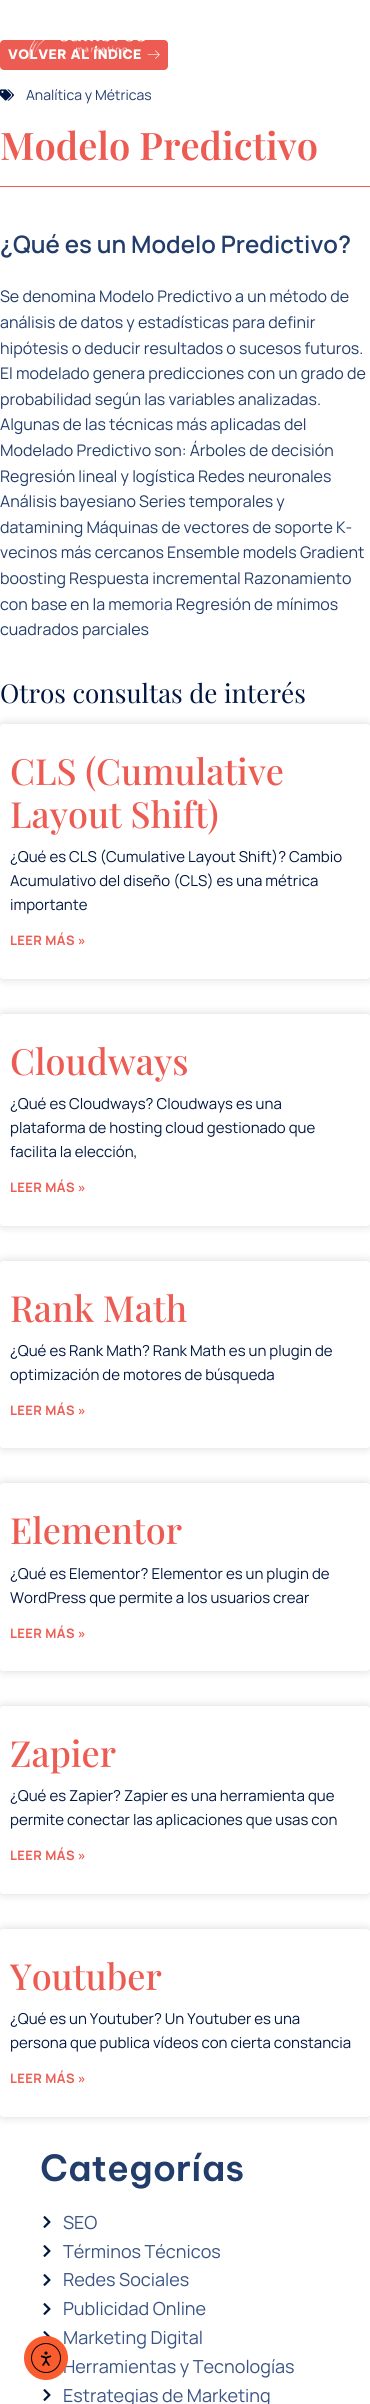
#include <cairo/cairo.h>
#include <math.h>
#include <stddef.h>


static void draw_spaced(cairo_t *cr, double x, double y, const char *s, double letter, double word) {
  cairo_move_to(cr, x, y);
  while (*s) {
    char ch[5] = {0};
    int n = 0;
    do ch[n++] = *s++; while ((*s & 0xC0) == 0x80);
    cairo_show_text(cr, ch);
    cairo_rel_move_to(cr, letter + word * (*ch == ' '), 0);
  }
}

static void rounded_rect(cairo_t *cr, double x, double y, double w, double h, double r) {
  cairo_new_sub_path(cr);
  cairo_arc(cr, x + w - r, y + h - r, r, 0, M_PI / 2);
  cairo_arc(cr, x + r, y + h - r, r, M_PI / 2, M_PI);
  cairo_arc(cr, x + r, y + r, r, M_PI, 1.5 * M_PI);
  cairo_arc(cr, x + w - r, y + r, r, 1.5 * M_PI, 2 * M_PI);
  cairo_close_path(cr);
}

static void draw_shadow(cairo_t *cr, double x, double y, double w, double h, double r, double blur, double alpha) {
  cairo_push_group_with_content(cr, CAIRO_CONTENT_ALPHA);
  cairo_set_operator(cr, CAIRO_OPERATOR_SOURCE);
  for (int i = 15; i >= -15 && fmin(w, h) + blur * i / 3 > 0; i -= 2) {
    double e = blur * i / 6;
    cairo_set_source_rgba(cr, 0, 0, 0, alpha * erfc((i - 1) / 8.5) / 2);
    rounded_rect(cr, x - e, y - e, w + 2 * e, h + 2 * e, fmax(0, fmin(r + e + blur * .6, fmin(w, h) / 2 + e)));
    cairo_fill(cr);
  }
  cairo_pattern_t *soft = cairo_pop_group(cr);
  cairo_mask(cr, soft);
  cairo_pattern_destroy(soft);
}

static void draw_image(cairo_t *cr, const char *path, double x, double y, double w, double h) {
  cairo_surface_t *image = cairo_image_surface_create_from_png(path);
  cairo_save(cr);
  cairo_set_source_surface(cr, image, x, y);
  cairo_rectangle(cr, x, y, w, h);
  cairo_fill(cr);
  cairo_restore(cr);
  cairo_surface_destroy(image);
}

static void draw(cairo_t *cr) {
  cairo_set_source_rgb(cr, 1, 1, 1);
  cairo_paint(cr);
  cairo_set_source_rgb(cr, 236 / 255.0, 92 / 255.0, 83 / 255.0);
  rounded_rect(cr, 0, 40, 168, 30, 4);
  cairo_fill(cr);
  draw_image(cr, "images/2.png", 147, 50, 13, 9);
  draw_image(cr, "images/3.png", 0, 89, 14, 12);
  cairo_rectangle(cr, 0, 186, 370, 1);
  cairo_fill(cr);
  cairo_set_source_rgb(cr, 0, 0, 0);
  draw_shadow(cr, 0, 724, 370, 255, 3, 5, 0.15);
  cairo_set_source_rgb(cr, 1, 1, 1);
  rounded_rect(cr, 0, 724, 370, 255, 3);
  cairo_fill(cr);
  cairo_set_source_rgb(cr, 0, 0, 0);
  draw_shadow(cr, 0, 1014, 370, 212, 3, 5, 0.15);
  cairo_set_source_rgb(cr, 1, 1, 1);
  rounded_rect(cr, 0, 1014, 370, 212, 3);
  cairo_fill(cr);
  cairo_set_source_rgb(cr, 0, 0, 0);
  draw_shadow(cr, 0, 1261, 370, 187, 3, 5, 0.15);
  cairo_set_source_rgb(cr, 1, 1, 1);
  rounded_rect(cr, 0, 1261, 370, 187, 3);
  cairo_fill(cr);
  cairo_set_source_rgb(cr, 0, 0, 0);
  draw_shadow(cr, 0, 1483, 370, 188, 3, 5, 0.15);
  cairo_set_source_rgb(cr, 1, 1, 1);
  rounded_rect(cr, 0, 1483, 370, 188, 3);
  cairo_fill(cr);
  cairo_set_source_rgb(cr, 0, 0, 0);
  draw_shadow(cr, 0, 1706, 370, 188, 3, 5, 0.15);
  cairo_set_source_rgb(cr, 1, 1, 1);
  rounded_rect(cr, 0, 1706, 370, 188, 3);
  cairo_fill(cr);
  cairo_set_source_rgb(cr, 0, 0, 0);
  draw_shadow(cr, 0, 1929, 370, 188, 3, 5, 0.15);
  cairo_set_source_rgb(cr, 1, 1, 1);
  rounded_rect(cr, 0, 1929, 370, 188, 3);
  cairo_fill(cr);
  draw_image(cr, "images/4.png", 43, 2216, 8, 12);
  draw_image(cr, "images/4.png", 43, 2245, 8, 12);
  draw_image(cr, "images/4.png", 43, 2274, 8, 12);
  draw_image(cr, "images/4.png", 43, 2303, 8, 12);
  draw_image(cr, "images/5.png", 43, 2331, 8, 6);
  draw_image(cr, "images/4.png", 43, 2389, 8, 12);
  cairo_select_font_face(cr, "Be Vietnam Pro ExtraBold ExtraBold", CAIRO_FONT_SLANT_NORMAL, CAIRO_FONT_WEIGHT_NORMAL);
  cairo_set_font_size(cr, 13);
  draw_spaced(cr, 8, 59, "VOLVER AL ÍNDICE", 0.4, 0);
  draw_image(cr, "images/1.png", 28, 40, 118, 21);
  cairo_select_font_face(cr, "Manrope", CAIRO_FONT_SLANT_NORMAL, CAIRO_FONT_WEIGHT_NORMAL);
  cairo_set_font_size(cr, 14);
  cairo_set_source_rgb(cr, 34 / 255.0, 61 / 255.0, 107 / 255.0);
  cairo_move_to(cr, 26, 100);
  cairo_show_text(cr, "Analítica y Métricas");
  cairo_select_font_face(cr, "Playfair Display SemiBold", CAIRO_FONT_SLANT_NORMAL, CAIRO_FONT_WEIGHT_NORMAL);
  cairo_set_font_size(cr, 38);
  cairo_set_source_rgb(cr, 236 / 255.0, 92 / 255.0, 83 / 255.0);
  cairo_move_to(cr, 0, 160);
  cairo_show_text(cr, "Modelo Predictivo");
  cairo_select_font_face(cr, "Manrope SemiBold", CAIRO_FONT_SLANT_NORMAL, CAIRO_FONT_WEIGHT_NORMAL);
  cairo_set_font_size(cr, 24);
  cairo_set_source_rgb(cr, 34 / 255.0, 61 / 255.0, 107 / 255.0);
  cairo_move_to(cr, 0, 253);
  cairo_show_text(cr, "¿Qué es un Modelo Predictivo?");
  cairo_select_font_face(cr, "Manrope", CAIRO_FONT_SLANT_NORMAL, CAIRO_FONT_WEIGHT_NORMAL);
  cairo_set_font_size(cr, 16);
  cairo_move_to(cr, 0, 302);
  cairo_show_text(cr, "Se denomina Modelo Predictivo a un método de");
  cairo_move_to(cr, 0, 328);
  cairo_show_text(cr, "análisis de datos y estadísticas para definir");
  cairo_move_to(cr, 0, 354);
  cairo_show_text(cr, "hipótesis o deducir resultados o sucesos futuros.");
  cairo_move_to(cr, 0, 379);
  cairo_show_text(cr, "El modelado genera predicciones con un grado de");
  cairo_move_to(cr, 0, 405);
  cairo_show_text(cr, "probabilidad según las variables analizadas.");
  cairo_move_to(cr, 0, 430);
  cairo_show_text(cr, "Algunas de las técnicas más aplicadas del");
  cairo_move_to(cr, 0, 456);
  cairo_show_text(cr, "Modelado Predictivo son: Árboles de decisión");
  cairo_move_to(cr, 0, 482);
  cairo_show_text(cr, "Regresión lineal y logística Redes neuronales");
  cairo_move_to(cr, 0, 507);
  cairo_show_text(cr, "Análisis bayesiano Series temporales y");
  cairo_move_to(cr, 0, 533);
  cairo_show_text(cr, "datamining Máquinas de vectores de soporte K-");
  cairo_move_to(cr, 0, 558);
  cairo_show_text(cr, "vecinos más cercanos Ensemble models Gradient");
  cairo_move_to(cr, 0, 584);
  cairo_show_text(cr, "boosting Respuesta incremental Razonamiento");
  cairo_move_to(cr, 0, 610);
  cairo_show_text(cr, "con base en la memoria Regresión de mínimos");
  cairo_move_to(cr, 0, 635);
  cairo_show_text(cr, "cuadrados parciales");
  cairo_select_font_face(cr, "Playfair Display", CAIRO_FONT_SLANT_NORMAL, CAIRO_FONT_WEIGHT_NORMAL);
  cairo_set_font_size(cr, 26);
  cairo_set_source_rgb(cr, 0, 22 / 255.0, 64 / 255.0);
  cairo_move_to(cr, 0, 703);
  cairo_show_text(cr, "Otros consultas de interés");
  cairo_select_font_face(cr, "Playfair Display Medium", CAIRO_FONT_SLANT_NORMAL, CAIRO_FONT_WEIGHT_NORMAL);
  cairo_set_font_size(cr, 36);
  cairo_set_source_rgb(cr, 236 / 255.0, 92 / 255.0, 83 / 255.0);
  cairo_move_to(cr, 10, 785);
  cairo_show_text(cr, "CLS (Cumulative");
  cairo_move_to(cr, 10, 828);
  cairo_show_text(cr, "Layout Shift)");
  cairo_select_font_face(cr, "Manrope", CAIRO_FONT_SLANT_NORMAL, CAIRO_FONT_WEIGHT_NORMAL);
  cairo_set_font_size(cr, 15);
  cairo_set_source_rgb(cr, 0, 22 / 255.0, 64 / 255.0);
  cairo_move_to(cr, 10, 862);
  cairo_show_text(cr, "¿Qué es CLS (Cumulative Layout Shift)? Cambio");
  cairo_move_to(cr, 10, 886);
  cairo_show_text(cr, "Acumulativo del diseño (CLS) es una métrica");
  cairo_move_to(cr, 10, 910);
  cairo_show_text(cr, "importante");
  cairo_select_font_face(cr, "Manrope", CAIRO_FONT_SLANT_NORMAL, CAIRO_FONT_WEIGHT_BOLD);
  cairo_set_font_size(cr, 13);
  cairo_set_source_rgb(cr, 236 / 255.0, 92 / 255.0, 83 / 255.0);
  draw_spaced(cr, 10, 945, "LEER MÁS »", 0.4, 0);
  cairo_select_font_face(cr, "Playfair Display Medium", CAIRO_FONT_SLANT_NORMAL, CAIRO_FONT_WEIGHT_NORMAL);
  cairo_set_font_size(cr, 36);
  cairo_move_to(cr, 10, 1075);
  cairo_show_text(cr, "Cloudways");
  cairo_select_font_face(cr, "Manrope", CAIRO_FONT_SLANT_NORMAL, CAIRO_FONT_WEIGHT_NORMAL);
  cairo_set_font_size(cr, 15);
  cairo_set_source_rgb(cr, 0, 22 / 255.0, 64 / 255.0);
  cairo_move_to(cr, 10, 1109);
  cairo_show_text(cr, "¿Qué es Cloudways? Cloudways es una");
  cairo_move_to(cr, 10, 1133);
  cairo_show_text(cr, "plataforma de hosting cloud gestionado que");
  cairo_move_to(cr, 10, 1157);
  cairo_show_text(cr, "facilita la elección,");
  cairo_select_font_face(cr, "Manrope", CAIRO_FONT_SLANT_NORMAL, CAIRO_FONT_WEIGHT_BOLD);
  cairo_set_font_size(cr, 13);
  cairo_set_source_rgb(cr, 236 / 255.0, 92 / 255.0, 83 / 255.0);
  draw_spaced(cr, 10, 1192, "LEER MÁS »", 0.4, 0);
  cairo_select_font_face(cr, "Playfair Display Medium", CAIRO_FONT_SLANT_NORMAL, CAIRO_FONT_WEIGHT_NORMAL);
  cairo_set_font_size(cr, 36);
  cairo_move_to(cr, 10, 1322);
  cairo_show_text(cr, "Rank Math");
  cairo_select_font_face(cr, "Manrope", CAIRO_FONT_SLANT_NORMAL, CAIRO_FONT_WEIGHT_NORMAL);
  cairo_set_font_size(cr, 15);
  cairo_set_source_rgb(cr, 0, 22 / 255.0, 64 / 255.0);
  cairo_move_to(cr, 10, 1356);
  cairo_show_text(cr, "¿Qué es Rank Math? Rank Math es un plugin de");
  cairo_move_to(cr, 10, 1380);
  cairo_show_text(cr, "optimización de motores de búsqueda");
  cairo_select_font_face(cr, "Manrope", CAIRO_FONT_SLANT_NORMAL, CAIRO_FONT_WEIGHT_BOLD);
  cairo_set_font_size(cr, 13);
  cairo_set_source_rgb(cr, 236 / 255.0, 92 / 255.0, 83 / 255.0);
  draw_spaced(cr, 10, 1415, "LEER MÁS »", 0.4, 0);
  cairo_select_font_face(cr, "Playfair Display Medium", CAIRO_FONT_SLANT_NORMAL, CAIRO_FONT_WEIGHT_NORMAL);
  cairo_set_font_size(cr, 36);
  cairo_move_to(cr, 10, 1544);
  cairo_show_text(cr, "Elementor");
  cairo_select_font_face(cr, "Manrope", CAIRO_FONT_SLANT_NORMAL, CAIRO_FONT_WEIGHT_NORMAL);
  cairo_set_font_size(cr, 15);
  cairo_set_source_rgb(cr, 0, 22 / 255.0, 64 / 255.0);
  cairo_move_to(cr, 10, 1579);
  cairo_show_text(cr, "¿Qué es Elementor? Elementor es un plugin de");
  cairo_move_to(cr, 10, 1603);
  cairo_show_text(cr, "WordPress que permite a los usuarios crear");
  cairo_select_font_face(cr, "Manrope", CAIRO_FONT_SLANT_NORMAL, CAIRO_FONT_WEIGHT_BOLD);
  cairo_set_font_size(cr, 13);
  cairo_set_source_rgb(cr, 236 / 255.0, 92 / 255.0, 83 / 255.0);
  draw_spaced(cr, 10, 1638, "LEER MÁS »", 0.4, 0);
  cairo_select_font_face(cr, "Playfair Display Medium", CAIRO_FONT_SLANT_NORMAL, CAIRO_FONT_WEIGHT_NORMAL);
  cairo_set_font_size(cr, 36);
  cairo_move_to(cr, 10, 1767);
  cairo_show_text(cr, "Zapier");
  cairo_select_font_face(cr, "Manrope", CAIRO_FONT_SLANT_NORMAL, CAIRO_FONT_WEIGHT_NORMAL);
  cairo_set_font_size(cr, 15);
  cairo_set_source_rgb(cr, 0, 22 / 255.0, 64 / 255.0);
  cairo_move_to(cr, 10, 1801);
  cairo_show_text(cr, "¿Qué es Zapier? Zapier es una herramienta que");
  cairo_move_to(cr, 10, 1825);
  cairo_show_text(cr, "permite conectar las aplicaciones que usas con");
  cairo_select_font_face(cr, "Manrope", CAIRO_FONT_SLANT_NORMAL, CAIRO_FONT_WEIGHT_BOLD);
  cairo_set_font_size(cr, 13);
  cairo_set_source_rgb(cr, 236 / 255.0, 92 / 255.0, 83 / 255.0);
  draw_spaced(cr, 10, 1860, "LEER MÁS »", 0.4, 0);
  cairo_select_font_face(cr, "Playfair Display Medium", CAIRO_FONT_SLANT_NORMAL, CAIRO_FONT_WEIGHT_NORMAL);
  cairo_set_font_size(cr, 36);
  cairo_move_to(cr, 10, 1990);
  cairo_show_text(cr, "Youtuber");
  cairo_select_font_face(cr, "Manrope", CAIRO_FONT_SLANT_NORMAL, CAIRO_FONT_WEIGHT_NORMAL);
  cairo_set_font_size(cr, 15);
  cairo_set_source_rgb(cr, 0, 22 / 255.0, 64 / 255.0);
  cairo_move_to(cr, 10, 2024);
  cairo_show_text(cr, "¿Qué es un Youtuber? Un Youtuber es una");
  cairo_move_to(cr, 10, 2048);
  cairo_show_text(cr, "persona que publica vídeos con cierta constancia");
  cairo_select_font_face(cr, "Manrope", CAIRO_FONT_SLANT_NORMAL, CAIRO_FONT_WEIGHT_BOLD);
  cairo_set_font_size(cr, 13);
  cairo_set_source_rgb(cr, 236 / 255.0, 92 / 255.0, 83 / 255.0);
  draw_spaced(cr, 10, 2083, "LEER MÁS »", 0.4, 0);
  cairo_select_font_face(cr, "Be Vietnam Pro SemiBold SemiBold", CAIRO_FONT_SLANT_NORMAL, CAIRO_FONT_WEIGHT_NORMAL);
  cairo_set_font_size(cr, 36);
  cairo_set_source_rgb(cr, 34 / 255.0, 61 / 255.0, 107 / 255.0);
  cairo_move_to(cr, 40, 2181);
  cairo_show_text(cr, "Categorías");
  cairo_select_font_face(cr, "Manrope", CAIRO_FONT_SLANT_NORMAL, CAIRO_FONT_WEIGHT_NORMAL);
  cairo_set_font_size(cr, 18);
  cairo_set_source_rgb(cr, 57 / 255.0, 84 / 255.0, 132 / 255.0);
  cairo_move_to(cr, 63, 2229);
  cairo_show_text(cr, "SEO");
  cairo_move_to(cr, 63, 2258);
  cairo_show_text(cr, "Términos Técnicos");
  cairo_move_to(cr, 63, 2286);
  cairo_show_text(cr, "Redes Sociales");
  cairo_move_to(cr, 63, 2315);
  cairo_show_text(cr, "Publicidad Online");
  cairo_move_to(cr, 63, 2344);
  cairo_show_text(cr, "Marketing Digital");
  cairo_move_to(cr, 63, 2373);
  cairo_show_text(cr, "Herramientas y Tecnologías");
  cairo_move_to(cr, 63, 2402);
  cairo_show_text(cr, "Estrategias de Marketing");
  cairo_set_source_rgb(cr, 249 / 255.0, 92 / 255.0, 47 / 255.0);
  cairo_new_path(cr);
  cairo_arc(cr, 46, 2358, 22, 0, 2 * M_PI);
  cairo_fill(cr);
  cairo_arc(cr, 46, 2358, 14.5, 0, 2 * M_PI);
  cairo_set_source_rgb(cr, 0, 0, 0);
  cairo_set_line_width(cr, 1);
  cairo_stroke(cr);
  draw_image(cr, "images/6.png", 40, 2351, 12, 15);
}

int main(void) {
  cairo_surface_t *surface = cairo_image_surface_create(CAIRO_FORMAT_RGB24, 370, 2404);
  cairo_t *cr = cairo_create(surface);
  cairo_font_options_t *options = cairo_font_options_create();
  cairo_font_options_set_hint_metrics(options, CAIRO_HINT_METRICS_OFF);
  cairo_font_options_set_hint_style(options, CAIRO_HINT_STYLE_NONE);
  cairo_set_font_options(cr, options);
  cairo_set_miter_limit(cr, 4);
  draw(cr);
  cairo_surface_write_to_png(surface, "out.png");
  cairo_font_options_destroy(options);
  cairo_destroy(cr);
  cairo_surface_destroy(surface);
  return 0;
}
